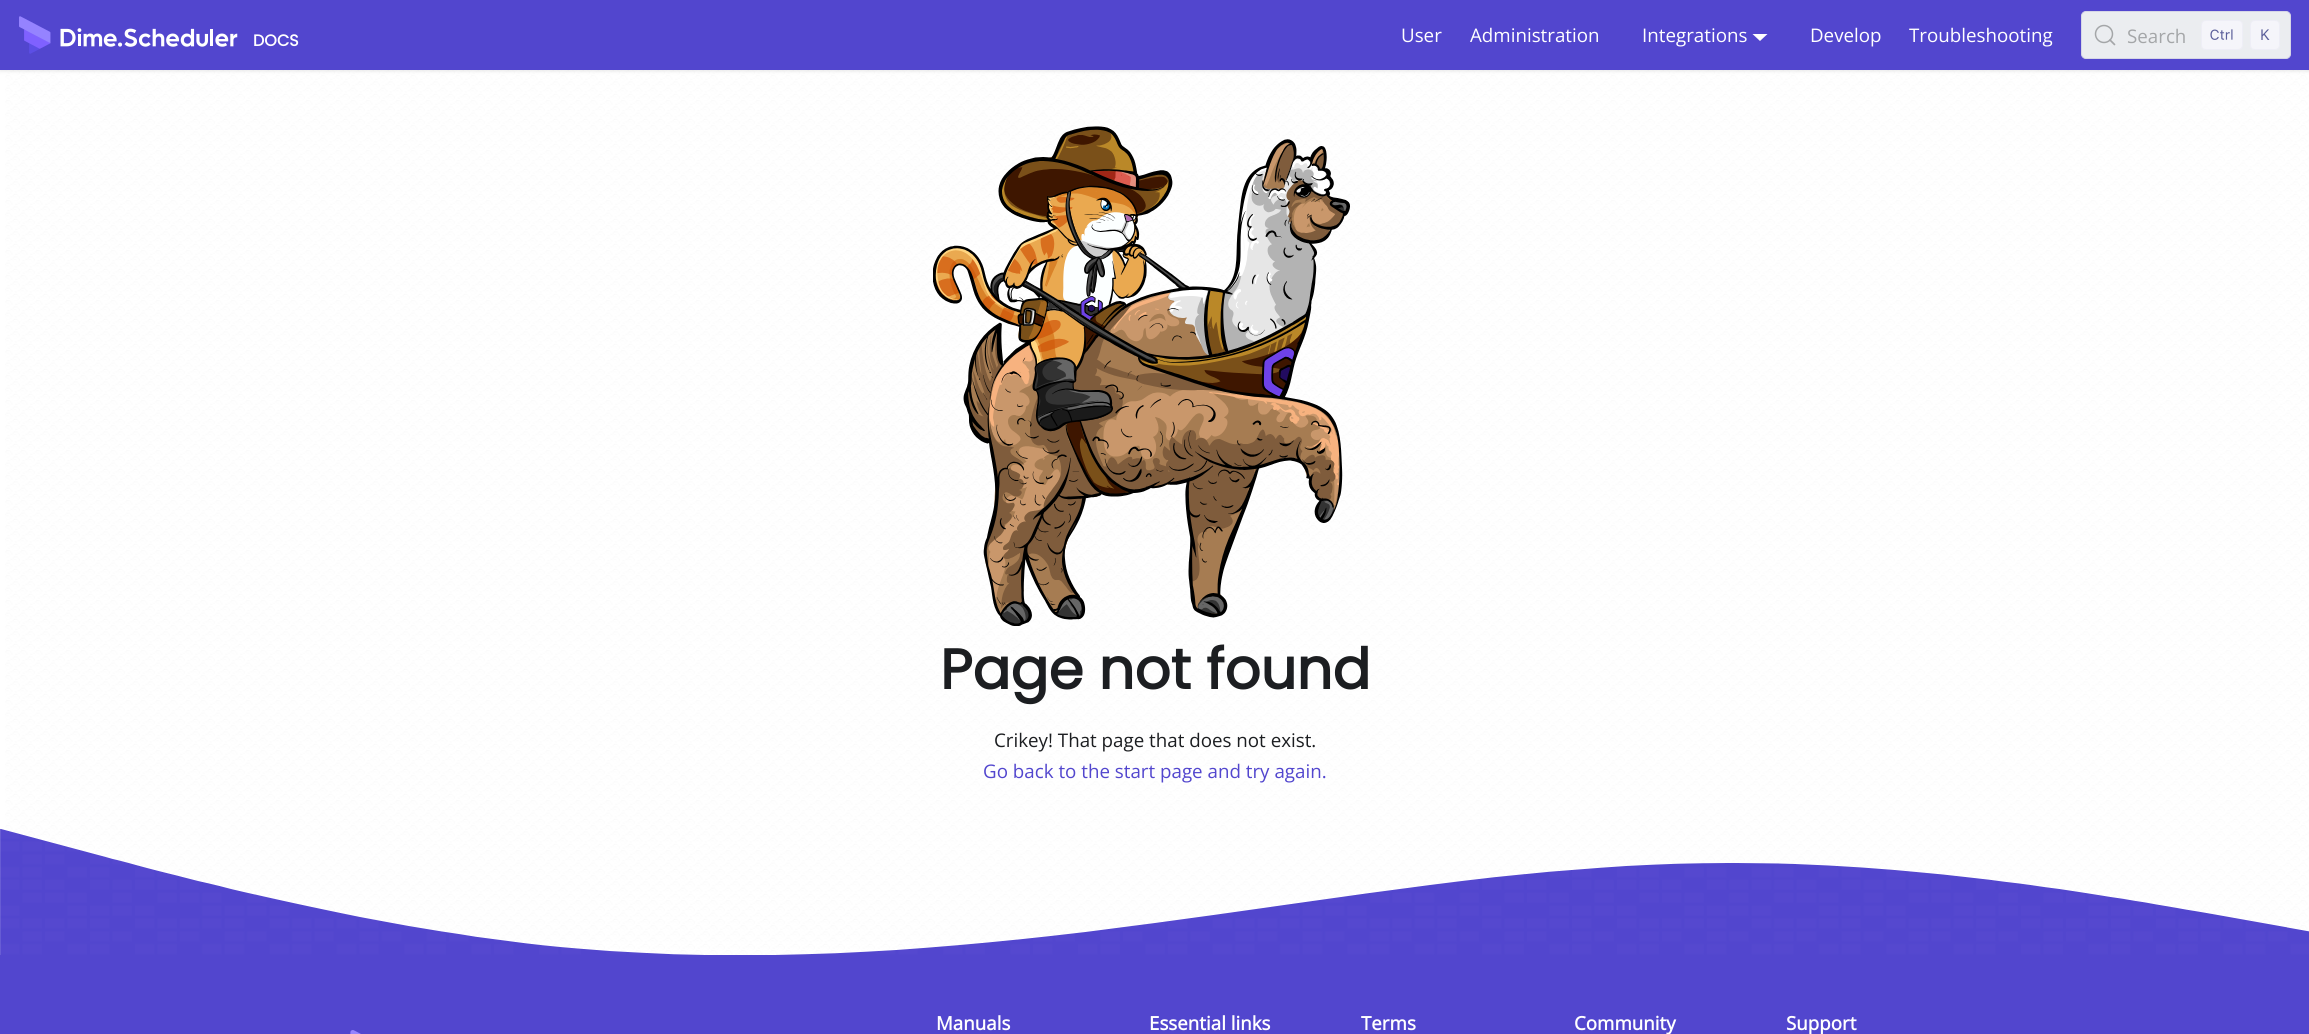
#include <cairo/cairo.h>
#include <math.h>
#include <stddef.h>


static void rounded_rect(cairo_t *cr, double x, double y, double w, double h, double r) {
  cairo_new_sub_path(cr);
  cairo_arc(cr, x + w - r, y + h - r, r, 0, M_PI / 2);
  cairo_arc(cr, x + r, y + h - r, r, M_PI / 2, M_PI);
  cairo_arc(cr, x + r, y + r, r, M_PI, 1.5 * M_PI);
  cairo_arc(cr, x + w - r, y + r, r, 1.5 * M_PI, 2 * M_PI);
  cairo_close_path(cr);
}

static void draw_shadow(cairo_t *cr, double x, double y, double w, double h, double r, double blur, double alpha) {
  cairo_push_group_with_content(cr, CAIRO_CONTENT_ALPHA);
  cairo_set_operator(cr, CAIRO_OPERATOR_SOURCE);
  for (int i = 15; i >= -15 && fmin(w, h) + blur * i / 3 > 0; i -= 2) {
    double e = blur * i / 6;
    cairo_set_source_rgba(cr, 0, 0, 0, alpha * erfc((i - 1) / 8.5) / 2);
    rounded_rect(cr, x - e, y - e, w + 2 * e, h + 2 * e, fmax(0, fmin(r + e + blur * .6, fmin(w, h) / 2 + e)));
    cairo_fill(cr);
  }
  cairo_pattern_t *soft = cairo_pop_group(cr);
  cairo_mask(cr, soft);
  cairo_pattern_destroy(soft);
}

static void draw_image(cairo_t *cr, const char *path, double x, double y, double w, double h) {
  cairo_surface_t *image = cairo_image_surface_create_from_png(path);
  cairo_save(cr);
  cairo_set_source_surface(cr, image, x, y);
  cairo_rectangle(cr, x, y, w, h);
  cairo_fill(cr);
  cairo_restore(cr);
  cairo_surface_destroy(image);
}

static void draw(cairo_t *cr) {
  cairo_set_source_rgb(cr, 1, 1, 1);
  cairo_paint(cr);
  draw_image(cr, "images/1.png", 5, 70, 2304, 885);
  cairo_set_source_rgb(cr, 0, 0, 0);
  draw_shadow(cr, 0, 1, 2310, 70, 0, 2, 0.1);
  cairo_set_source_rgb(cr, 82 / 255.0, 70 / 255.0, 206 / 255.0);
  cairo_rectangle(cr, 0, 0, 2309, 70);
  cairo_fill(cr);
  draw_image(cr, "images/2.png", 19, 16, 219, 38);
  cairo_set_source_rgb(cr, 1, 1, 1);
  cairo_new_path(cr);
  cairo_move_to(cr, 1752.5, 34);
  cairo_line_to(cr, 1767.5, 34);
  cairo_line_to(cr, 1760, 41);
  cairo_close_path(cr);
  cairo_fill(cr);
  cairo_set_source_rgb(cr, 235 / 255.0, 237 / 255.0, 240 / 255.0);
  rounded_rect(cr, 2081.5, 11.5, 209, 47, 4.5);
  cairo_fill_preserve(cr);
  cairo_set_source_rgb(cr, 214 / 255.0, 214 / 255.0, 231 / 255.0);
  cairo_set_line_width(cr, 1);
  cairo_stroke(cr);
  cairo_arc(cr, 2104, 34, 8.5, 0, 2 * M_PI);
  cairo_set_source_rgb(cr, 164 / 255.0, 166 / 255.0, 168 / 255.0);
  cairo_set_line_width(cr, 1.5);
  cairo_stroke(cr);
  cairo_new_path(cr);
  cairo_move_to(cr, 2114.5, 44.5);
  cairo_line_to(cr, 2110, 40);
  cairo_set_line_width(cr, 1.7);
  cairo_set_line_cap(cr, CAIRO_LINE_CAP_ROUND);
  cairo_set_line_join(cr, CAIRO_LINE_JOIN_ROUND);
  cairo_stroke(cr);
  cairo_set_source_rgb(cr, 245 / 255.0, 245 / 255.0, 250 / 255.0);
  rounded_rect(cr, 2201, 20, 42, 30, 5);
  cairo_fill(cr);
  rounded_rect(cr, 2201.5, 20.5, 41, 29, 4.5);
  cairo_set_source_rgba(cr, 214 / 255.0, 214 / 255.0, 231 / 255.0, 0.2);
  cairo_set_line_width(cr, 1);
  cairo_set_line_cap(cr, CAIRO_LINE_CAP_BUTT);
  cairo_set_line_join(cr, CAIRO_LINE_JOIN_MITER);
  cairo_stroke(cr);
  draw_image(cr, "images/3.png", 2210, 29, 23, 11);
  cairo_set_source_rgb(cr, 245 / 255.0, 245 / 255.0, 250 / 255.0);
  rounded_rect(cr, 2250, 20, 30, 30, 5);
  cairo_fill(cr);
  rounded_rect(cr, 2250.5, 20.5, 29, 29, 4.5);
  cairo_set_source_rgba(cr, 214 / 255.0, 214 / 255.0, 231 / 255.0, 0.2);
  cairo_stroke(cr);
  draw_image(cr, "images/4.png", 2261, 29, 9, 11);
  draw_image(cr, "images/5.png", 933, 126, 417, 500);
  draw_image(cr, "images/6.png", 0, 828, 2309, 127);
  cairo_set_source_rgb(cr, 82 / 255.0, 70 / 255.0, 206 / 255.0);
  cairo_rectangle(cr, 0, 955, 2309, 79);
  cairo_fill(cr);
  draw_image(cr, "images/7.png", 350, 1030, 11, 4);
  cairo_select_font_face(cr, "Poppins", CAIRO_FONT_SLANT_NORMAL, CAIRO_FONT_WEIGHT_BOLD);
  cairo_set_font_size(cr, 16);
  cairo_set_source_rgb(cr, 1, 1, 1);
  cairo_move_to(cr, 253, 46);
  cairo_show_text(cr, "DOCS");
  cairo_select_font_face(cr, "Open Sans", CAIRO_FONT_SLANT_NORMAL, CAIRO_FONT_WEIGHT_NORMAL);
  cairo_set_font_size(cr, 18.75);
  cairo_move_to(cr, 1401, 42);
  cairo_show_text(cr, "User");
  cairo_move_to(cr, 1470, 42);
  cairo_show_text(cr, "Administration");
  cairo_move_to(cr, 1642, 42);
  cairo_show_text(cr, "Integrations");
  cairo_move_to(cr, 1810, 42);
  cairo_show_text(cr, "Develop");
  cairo_move_to(cr, 1909, 42);
  cairo_show_text(cr, "Troubleshooting");
  cairo_set_source_rgb(cr, 164 / 255.0, 166 / 255.0, 168 / 255.0);
  cairo_move_to(cr, 2127, 43);
  cairo_show_text(cr, "Search");
  cairo_select_font_face(cr, "Poppins", CAIRO_FONT_SLANT_NORMAL, CAIRO_FONT_WEIGHT_BOLD);
  cairo_set_font_size(cr, 56.25);
  cairo_set_source_rgb(cr, 28 / 255.0, 30 / 255.0, 33 / 255.0);
  cairo_move_to(cr, 940, 689);
  cairo_show_text(cr, "Page not found");
  cairo_select_font_face(cr, "Open Sans", CAIRO_FONT_SLANT_NORMAL, CAIRO_FONT_WEIGHT_NORMAL);
  cairo_set_font_size(cr, 18.75);
  cairo_move_to(cr, 994, 747);
  cairo_show_text(cr, "Crikey! That page that does not exist.");
  cairo_set_source_rgb(cr, 82 / 255.0, 70 / 255.0, 206 / 255.0);
  cairo_move_to(cr, 983, 778);
  cairo_show_text(cr, "Go back to the start page and try again.");
  cairo_select_font_face(cr, "Open Sans", CAIRO_FONT_SLANT_NORMAL, CAIRO_FONT_WEIGHT_BOLD);
  cairo_set_source_rgb(cr, 1, 1, 1);
  cairo_move_to(cr, 936, 1030);
  cairo_show_text(cr, "Manuals");
  cairo_move_to(cr, 1149, 1030);
  cairo_show_text(cr, "Essential links");
  cairo_move_to(cr, 1361, 1030);
  cairo_show_text(cr, "Terms");
  cairo_move_to(cr, 1574, 1030);
  cairo_show_text(cr, "Community");
  cairo_move_to(cr, 1786, 1030);
  cairo_show_text(cr, "Support");
}

int main(void) {
  cairo_surface_t *surface = cairo_image_surface_create(CAIRO_FORMAT_RGB24, 2309, 1034);
  cairo_t *cr = cairo_create(surface);
  cairo_font_options_t *options = cairo_font_options_create();
  cairo_font_options_set_hint_metrics(options, CAIRO_HINT_METRICS_OFF);
  cairo_font_options_set_hint_style(options, CAIRO_HINT_STYLE_NONE);
  cairo_set_font_options(cr, options);
  cairo_set_miter_limit(cr, 4);
  draw(cr);
  cairo_surface_write_to_png(surface, "out.png");
  cairo_font_options_destroy(options);
  cairo_destroy(cr);
  cairo_surface_destroy(surface);
  return 0;
}
